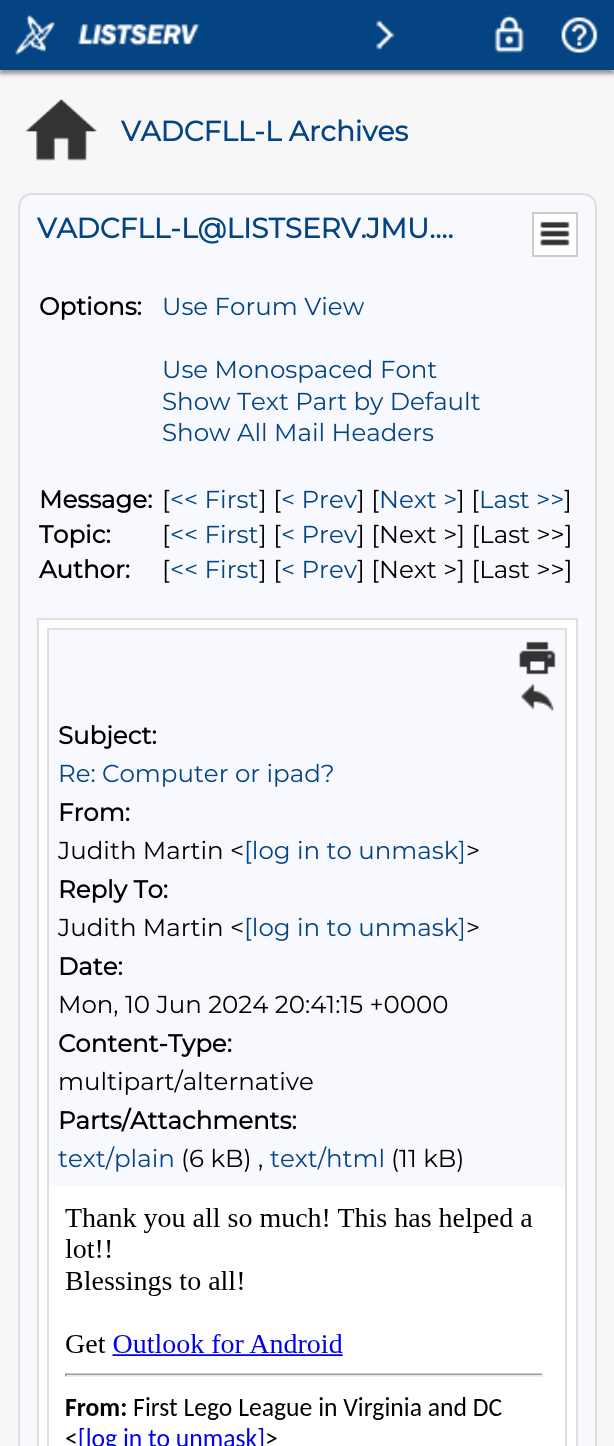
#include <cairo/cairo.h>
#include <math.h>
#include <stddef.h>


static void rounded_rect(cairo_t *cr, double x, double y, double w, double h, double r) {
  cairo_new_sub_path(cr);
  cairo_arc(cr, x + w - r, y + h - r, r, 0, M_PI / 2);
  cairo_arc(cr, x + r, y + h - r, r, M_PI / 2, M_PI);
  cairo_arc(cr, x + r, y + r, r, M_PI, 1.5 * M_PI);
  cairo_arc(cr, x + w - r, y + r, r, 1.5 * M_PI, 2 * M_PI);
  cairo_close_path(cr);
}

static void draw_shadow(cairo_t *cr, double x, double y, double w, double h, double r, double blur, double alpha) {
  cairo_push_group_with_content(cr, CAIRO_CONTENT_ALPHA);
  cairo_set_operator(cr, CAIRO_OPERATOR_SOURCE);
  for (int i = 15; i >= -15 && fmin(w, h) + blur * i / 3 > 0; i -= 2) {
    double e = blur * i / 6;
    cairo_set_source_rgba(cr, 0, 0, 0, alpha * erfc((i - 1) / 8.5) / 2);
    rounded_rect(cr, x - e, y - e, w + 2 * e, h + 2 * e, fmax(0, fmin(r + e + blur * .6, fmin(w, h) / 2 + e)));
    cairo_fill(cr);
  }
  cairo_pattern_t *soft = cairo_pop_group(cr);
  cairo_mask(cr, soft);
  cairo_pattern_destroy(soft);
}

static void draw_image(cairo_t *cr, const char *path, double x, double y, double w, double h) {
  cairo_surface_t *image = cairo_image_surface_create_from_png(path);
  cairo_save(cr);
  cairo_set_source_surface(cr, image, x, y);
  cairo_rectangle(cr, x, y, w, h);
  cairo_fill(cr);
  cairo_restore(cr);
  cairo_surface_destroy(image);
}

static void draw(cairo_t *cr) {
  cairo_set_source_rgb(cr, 247 / 255.0, 247 / 255.0, 247 / 255.0);
  cairo_paint(cr);
  cairo_set_source_rgb(cr, 153 / 255.0, 153 / 255.0, 153 / 255.0);
  draw_shadow(cr, 0, 4, 614, 70, 0, 2, 1);
  cairo_set_source_rgb(cr, 5 / 255.0, 68 / 255.0, 131 / 255.0);
  cairo_rectangle(cr, 0, 0, 614, 70);
  cairo_fill(cr);
  draw_image(cr, "images/1.png", 15, 15, 40, 40);
  draw_image(cr, "images/2.png", 78, 24, 122, 22);
  draw_image(cr, "images/3.png", 375, 20, 20, 30);
  draw_image(cr, "images/4.png", 494, 15, 30, 38);
  draw_image(cr, "images/5.png", 561, 17, 37, 36);
  draw_image(cr, "images/6.png", 25, 99, 72, 62);
  cairo_set_source_rgb(cr, 247 / 255.0, 249 / 255.0, 254 / 255.0);
  rounded_rect(cr, 19, 194, 577, 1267, 13);
  cairo_fill_preserve(cr);
  cairo_set_source_rgb(cr, 222 / 255.0, 222 / 255.0, 222 / 255.0);
  cairo_stroke(cr);
  cairo_set_source_rgb(cr, 1, 1, 1);
  cairo_rectangle(cr, 533, 213, 44, 43);
  cairo_fill_preserve(cr);
  cairo_set_source_rgb(cr, 204 / 255.0, 204 / 255.0, 204 / 255.0);
  cairo_stroke(cr);
  draw_image(cr, "images/7.png", 540, 221, 30, 25);
  cairo_rectangle(cr, 38, 619, 539, 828);
  cairo_set_source_rgb(cr, 222 / 255.0, 222 / 255.0, 222 / 255.0);
  cairo_stroke(cr);
  cairo_set_source_rgb(cr, 1, 1, 1);
  cairo_rectangle(cr, 39, 620, 537, 826);
  cairo_fill(cr);
  cairo_rectangle(cr, 48, 629, 518, 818);
  cairo_set_source_rgb(cr, 222 / 255.0, 222 / 255.0, 222 / 255.0);
  cairo_stroke(cr);
  cairo_set_source_rgb(cr, 247 / 255.0, 249 / 255.0, 254 / 255.0);
  cairo_rectangle(cr, 49, 630, 516, 557);
  cairo_fill(cr);
  draw_image(cr, "images/8.png", 519, 641, 37, 34);
  draw_image(cr, "images/9.png", 521, 683, 33, 28);
  draw_image(cr, "images/10.png", 65, 1208, 478, 238);
  cairo_select_font_face(cr, "Montserrat", CAIRO_FONT_SLANT_NORMAL, CAIRO_FONT_WEIGHT_BOLD);
  cairo_set_font_size(cr, 28);
  cairo_set_source_rgb(cr, 5 / 255.0, 68 / 255.0, 131 / 255.0);
  cairo_move_to(cr, 121, 141);
  cairo_show_text(cr, "VADCFLL-L Archives");
  cairo_move_to(cr, 37, 238);
  cairo_show_text(cr, "VADCFLL-L@LISTSERV.JMU.…");
  cairo_set_font_size(cr, 24.5);
  cairo_set_source_rgb(cr, 0, 0, 0);
  cairo_move_to(cr, 39, 315);
  cairo_show_text(cr, "Options:");
  cairo_select_font_face(cr, "Montserrat Thin", CAIRO_FONT_SLANT_NORMAL, CAIRO_FONT_WEIGHT_NORMAL);
  cairo_set_source_rgb(cr, 5 / 255.0, 68 / 255.0, 131 / 255.0);
  cairo_move_to(cr, 162, 315);
  cairo_show_text(cr, "Use Forum View");
  cairo_move_to(cr, 162, 378);
  cairo_show_text(cr, "Use Monospaced Font");
  cairo_move_to(cr, 162, 410);
  cairo_show_text(cr, "Show Text Part by Default");
  cairo_move_to(cr, 162, 441);
  cairo_show_text(cr, "Show All Mail Headers");
  cairo_select_font_face(cr, "Montserrat", CAIRO_FONT_SLANT_NORMAL, CAIRO_FONT_WEIGHT_BOLD);
  cairo_set_source_rgb(cr, 0, 0, 0);
  cairo_move_to(cr, 39, 508);
  cairo_show_text(cr, "Message:");
  cairo_select_font_face(cr, "Montserrat Thin", CAIRO_FONT_SLANT_NORMAL, CAIRO_FONT_WEIGHT_NORMAL);
  cairo_move_to(cr, 162, 508);
  cairo_show_text(cr, "[");
  cairo_set_source_rgb(cr, 5 / 255.0, 68 / 255.0, 131 / 255.0);
  cairo_move_to(cr, 170, 508);
  cairo_show_text(cr, "<< First");
  cairo_set_source_rgb(cr, 0, 0, 0);
  cairo_move_to(cr, 259, 508);
  cairo_show_text(cr, "] [");
  cairo_set_source_rgb(cr, 5 / 255.0, 68 / 255.0, 131 / 255.0);
  cairo_move_to(cr, 281, 508);
  cairo_show_text(cr, "< Prev");
  cairo_set_source_rgb(cr, 0, 0, 0);
  cairo_move_to(cr, 357, 508);
  cairo_show_text(cr, "] [");
  cairo_set_source_rgb(cr, 5 / 255.0, 68 / 255.0, 131 / 255.0);
  cairo_move_to(cr, 379, 508);
  cairo_show_text(cr, "Next >");
  cairo_set_source_rgb(cr, 0, 0, 0);
  cairo_move_to(cr, 457, 508);
  cairo_show_text(cr, "] [");
  cairo_set_source_rgb(cr, 5 / 255.0, 68 / 255.0, 131 / 255.0);
  cairo_move_to(cr, 479, 508);
  cairo_show_text(cr, "Last >>");
  cairo_set_source_rgb(cr, 0, 0, 0);
  cairo_move_to(cr, 564, 508);
  cairo_show_text(cr, "]");
  cairo_select_font_face(cr, "Montserrat", CAIRO_FONT_SLANT_NORMAL, CAIRO_FONT_WEIGHT_BOLD);
  cairo_move_to(cr, 39, 543);
  cairo_show_text(cr, "Topic:");
  cairo_select_font_face(cr, "Montserrat Thin", CAIRO_FONT_SLANT_NORMAL, CAIRO_FONT_WEIGHT_NORMAL);
  cairo_move_to(cr, 162, 543);
  cairo_show_text(cr, "[");
  cairo_set_source_rgb(cr, 5 / 255.0, 68 / 255.0, 131 / 255.0);
  cairo_move_to(cr, 170, 543);
  cairo_show_text(cr, "<< First");
  cairo_set_source_rgb(cr, 0, 0, 0);
  cairo_move_to(cr, 259, 543);
  cairo_show_text(cr, "] [");
  cairo_set_source_rgb(cr, 5 / 255.0, 68 / 255.0, 131 / 255.0);
  cairo_move_to(cr, 281, 543);
  cairo_show_text(cr, "< Prev");
  cairo_set_source_rgb(cr, 0, 0, 0);
  cairo_move_to(cr, 357, 543);
  cairo_show_text(cr, "] [Next >] [Last >>]");
  cairo_select_font_face(cr, "Montserrat", CAIRO_FONT_SLANT_NORMAL, CAIRO_FONT_WEIGHT_BOLD);
  cairo_move_to(cr, 39, 578);
  cairo_show_text(cr, "Author:");
  cairo_select_font_face(cr, "Montserrat Thin", CAIRO_FONT_SLANT_NORMAL, CAIRO_FONT_WEIGHT_NORMAL);
  cairo_move_to(cr, 162, 578);
  cairo_show_text(cr, "[");
  cairo_set_source_rgb(cr, 5 / 255.0, 68 / 255.0, 131 / 255.0);
  cairo_move_to(cr, 170, 578);
  cairo_show_text(cr, "<< First");
  cairo_set_source_rgb(cr, 0, 0, 0);
  cairo_move_to(cr, 259, 578);
  cairo_show_text(cr, "] [");
  cairo_set_source_rgb(cr, 5 / 255.0, 68 / 255.0, 131 / 255.0);
  cairo_move_to(cr, 281, 578);
  cairo_show_text(cr, "< Prev");
  cairo_set_source_rgb(cr, 0, 0, 0);
  cairo_move_to(cr, 357, 578);
  cairo_show_text(cr, "] [Next >] [Last >>]");
  cairo_select_font_face(cr, "Montserrat", CAIRO_FONT_SLANT_NORMAL, CAIRO_FONT_WEIGHT_BOLD);
  cairo_move_to(cr, 58, 744);
  cairo_show_text(cr, "Subject:");
  cairo_select_font_face(cr, "Montserrat Thin", CAIRO_FONT_SLANT_NORMAL, CAIRO_FONT_WEIGHT_NORMAL);
  cairo_set_source_rgb(cr, 5 / 255.0, 68 / 255.0, 131 / 255.0);
  cairo_move_to(cr, 58, 782);
  cairo_show_text(cr, "Re: Computer or ipad?");
  cairo_select_font_face(cr, "Montserrat", CAIRO_FONT_SLANT_NORMAL, CAIRO_FONT_WEIGHT_BOLD);
  cairo_set_source_rgb(cr, 0, 0, 0);
  cairo_move_to(cr, 58, 821);
  cairo_show_text(cr, "From:");
  cairo_select_font_face(cr, "Montserrat Thin", CAIRO_FONT_SLANT_NORMAL, CAIRO_FONT_WEIGHT_NORMAL);
  cairo_move_to(cr, 58, 859);
  cairo_show_text(cr, "Judith Martin <");
  cairo_set_source_rgb(cr, 5 / 255.0, 68 / 255.0, 131 / 255.0);
  cairo_move_to(cr, 244, 859);
  cairo_show_text(cr, "[log in to unmask]");
  cairo_set_source_rgb(cr, 0, 0, 0);
  cairo_move_to(cr, 466, 859);
  cairo_show_text(cr, ">");
  cairo_select_font_face(cr, "Montserrat", CAIRO_FONT_SLANT_NORMAL, CAIRO_FONT_WEIGHT_BOLD);
  cairo_move_to(cr, 58, 898);
  cairo_show_text(cr, "Reply To:");
  cairo_select_font_face(cr, "Montserrat Thin", CAIRO_FONT_SLANT_NORMAL, CAIRO_FONT_WEIGHT_NORMAL);
  cairo_move_to(cr, 58, 936);
  cairo_show_text(cr, "Judith Martin <");
  cairo_set_source_rgb(cr, 5 / 255.0, 68 / 255.0, 131 / 255.0);
  cairo_move_to(cr, 244, 936);
  cairo_show_text(cr, "[log in to unmask]");
  cairo_set_source_rgb(cr, 0, 0, 0);
  cairo_move_to(cr, 466, 936);
  cairo_show_text(cr, ">");
  cairo_select_font_face(cr, "Montserrat", CAIRO_FONT_SLANT_NORMAL, CAIRO_FONT_WEIGHT_BOLD);
  cairo_move_to(cr, 58, 975);
  cairo_show_text(cr, "Date:");
  cairo_select_font_face(cr, "Montserrat Thin", CAIRO_FONT_SLANT_NORMAL, CAIRO_FONT_WEIGHT_NORMAL);
  cairo_move_to(cr, 58, 1013);
  cairo_show_text(cr, "Mon, 10 Jun 2024 20:41:15 +0000");
  cairo_select_font_face(cr, "Montserrat", CAIRO_FONT_SLANT_NORMAL, CAIRO_FONT_WEIGHT_BOLD);
  cairo_move_to(cr, 58, 1052);
  cairo_show_text(cr, "Content-Type:");
  cairo_select_font_face(cr, "Montserrat Thin", CAIRO_FONT_SLANT_NORMAL, CAIRO_FONT_WEIGHT_NORMAL);
  cairo_move_to(cr, 58, 1090);
  cairo_show_text(cr, "multipart/alternative");
  cairo_select_font_face(cr, "Montserrat", CAIRO_FONT_SLANT_NORMAL, CAIRO_FONT_WEIGHT_BOLD);
  cairo_move_to(cr, 58, 1129);
  cairo_show_text(cr, "Parts/Attachments:");
  cairo_select_font_face(cr, "Montserrat Thin", CAIRO_FONT_SLANT_NORMAL, CAIRO_FONT_WEIGHT_NORMAL);
  cairo_set_source_rgb(cr, 5 / 255.0, 68 / 255.0, 131 / 255.0);
  cairo_move_to(cr, 58, 1167);
  cairo_show_text(cr, "text/plain");
  cairo_set_source_rgb(cr, 0, 0, 0);
  cairo_move_to(cr, 181, 1167);
  cairo_show_text(cr, "(6 kB) ,");
  cairo_set_source_rgb(cr, 5 / 255.0, 68 / 255.0, 131 / 255.0);
  cairo_move_to(cr, 270, 1167);
  cairo_show_text(cr, "text/html");
  cairo_set_source_rgb(cr, 0, 0, 0);
  cairo_move_to(cr, 391, 1167);
  cairo_show_text(cr, "(11 kB)");
}

int main(void) {
  cairo_surface_t *surface = cairo_image_surface_create(CAIRO_FORMAT_RGB24, 614, 1446);
  cairo_t *cr = cairo_create(surface);
  cairo_font_options_t *options = cairo_font_options_create();
  cairo_font_options_set_hint_metrics(options, CAIRO_HINT_METRICS_OFF);
  cairo_font_options_set_hint_style(options, CAIRO_HINT_STYLE_NONE);
  cairo_set_font_options(cr, options);
  cairo_set_miter_limit(cr, 4);
  draw(cr);
  cairo_surface_write_to_png(surface, "out.png");
  cairo_font_options_destroy(options);
  cairo_destroy(cr);
  cairo_surface_destroy(surface);
  return 0;
}
